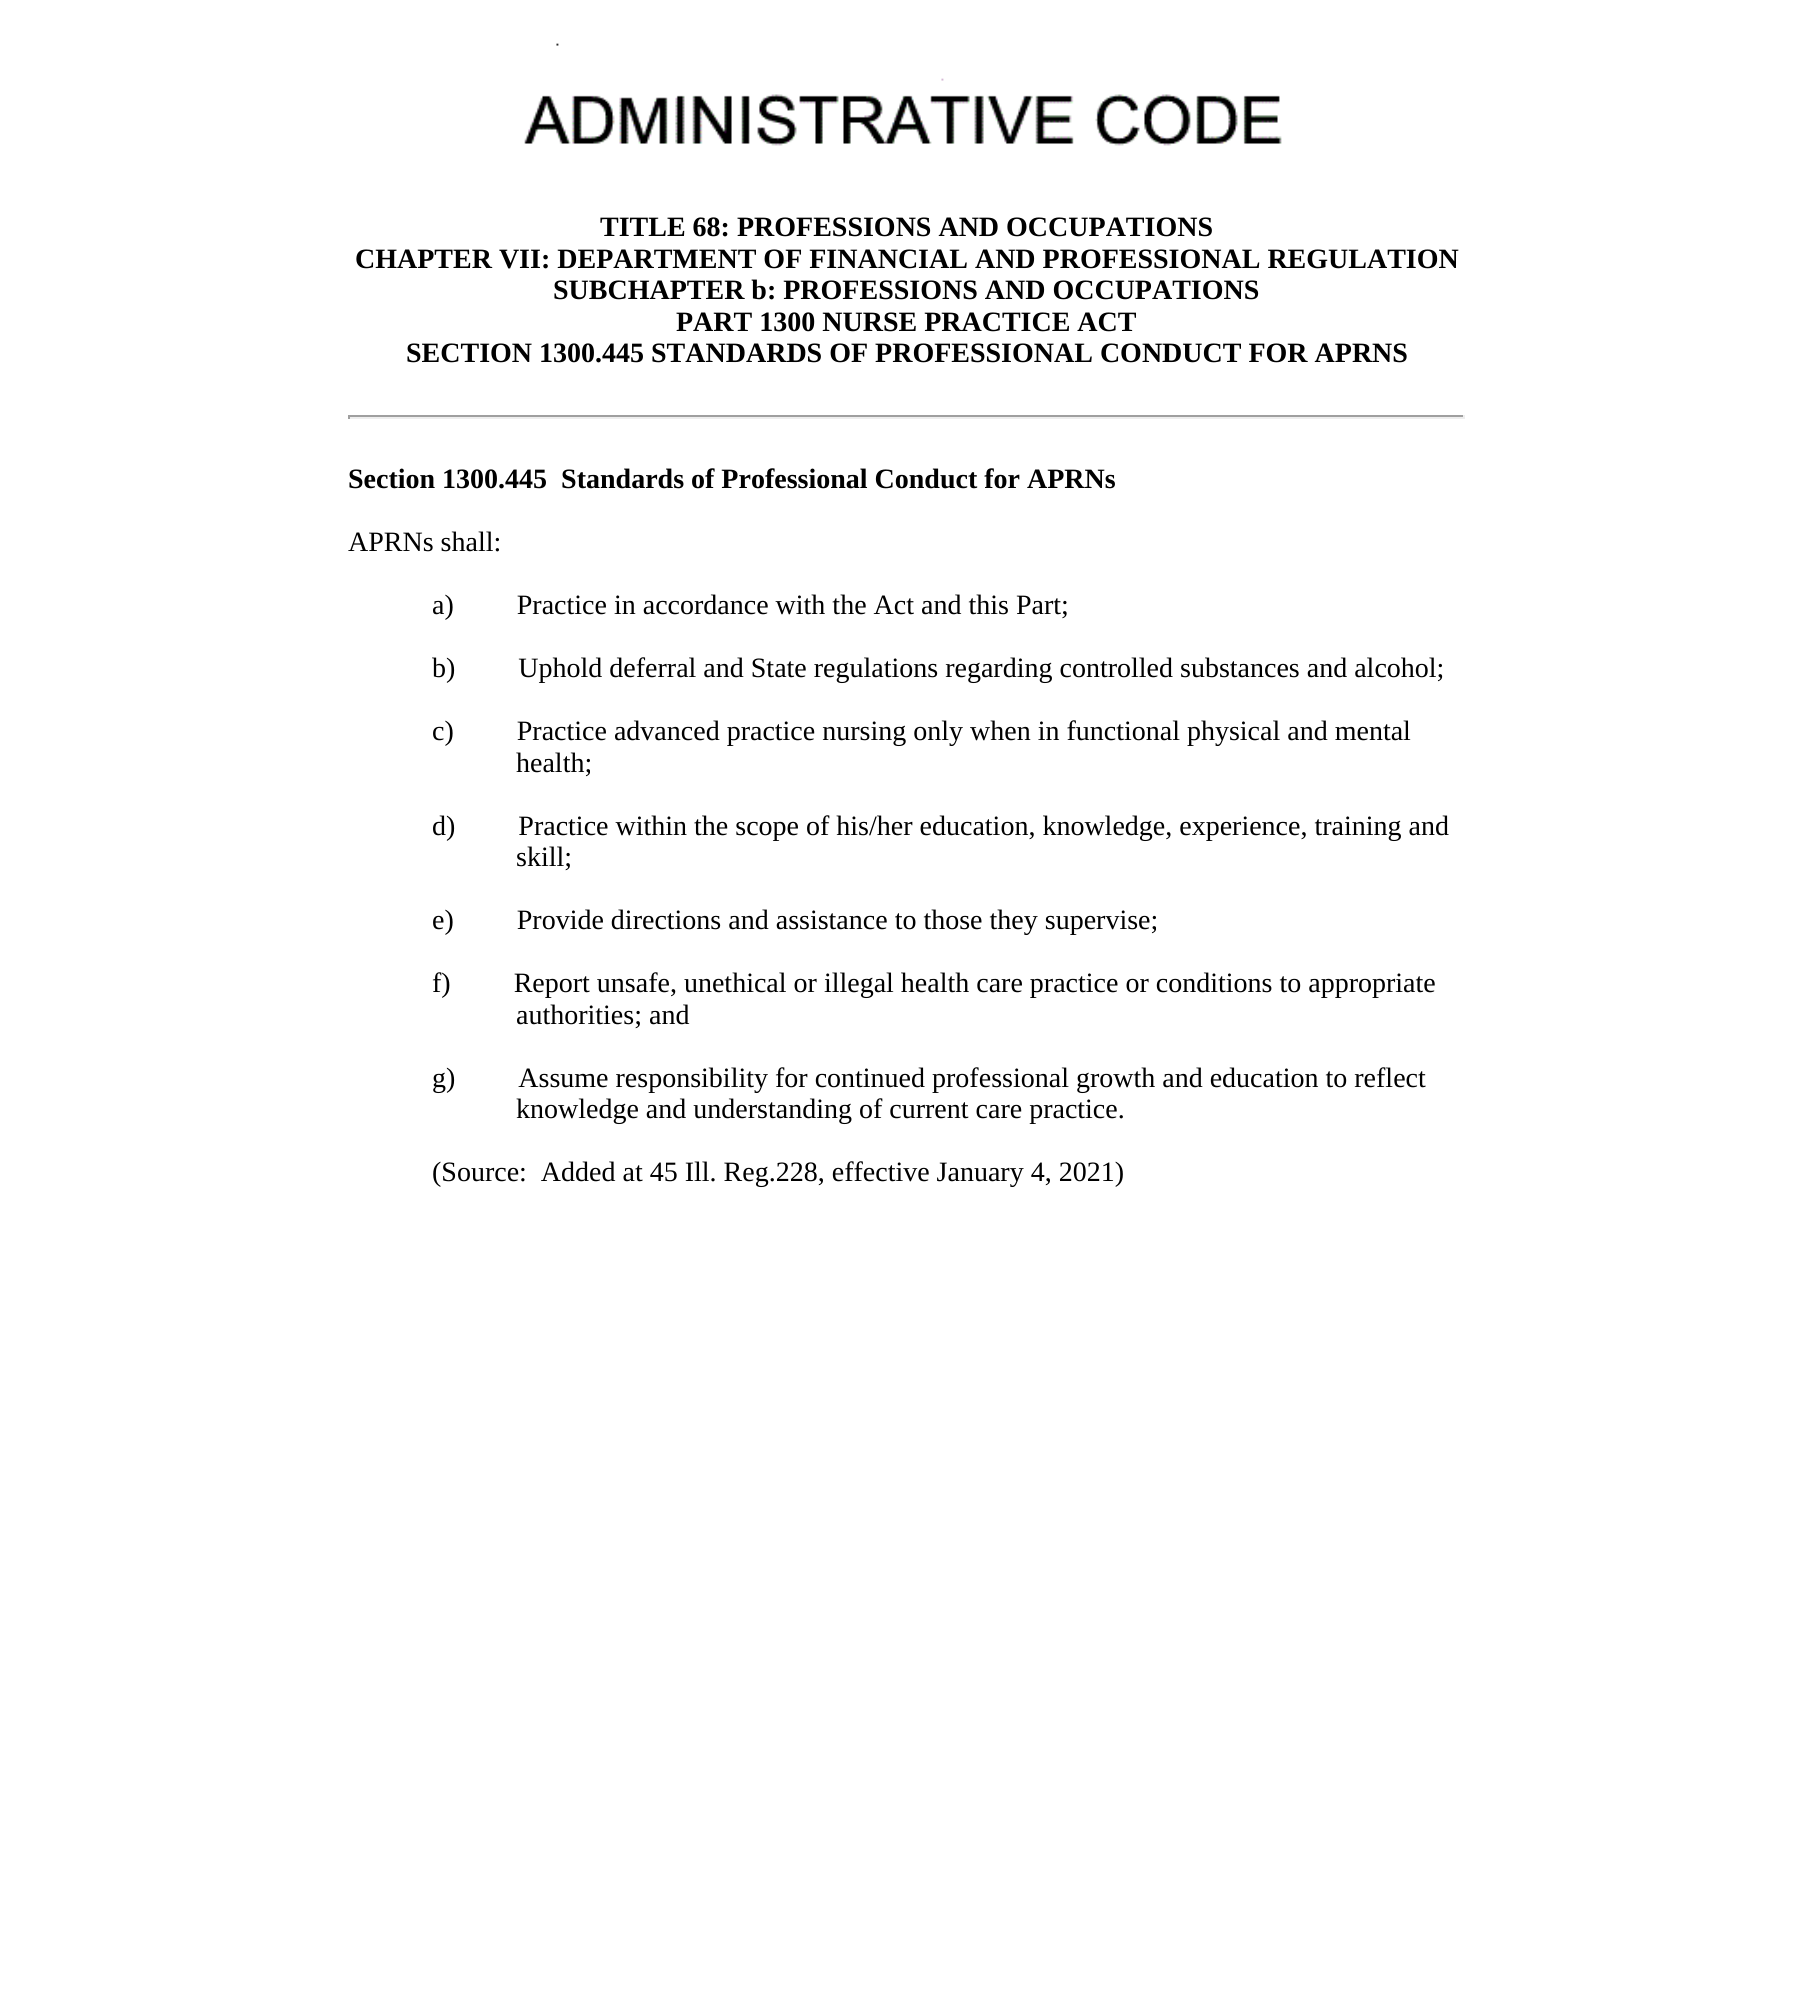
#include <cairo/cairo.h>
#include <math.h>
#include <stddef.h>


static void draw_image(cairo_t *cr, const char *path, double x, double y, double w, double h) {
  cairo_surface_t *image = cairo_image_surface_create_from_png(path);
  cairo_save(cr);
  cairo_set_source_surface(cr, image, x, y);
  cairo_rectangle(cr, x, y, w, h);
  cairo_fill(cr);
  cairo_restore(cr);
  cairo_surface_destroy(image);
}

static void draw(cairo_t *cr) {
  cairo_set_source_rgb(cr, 1, 1, 1);
  cairo_paint(cr);
  draw_image(cr, "images/1.png", 524, 43, 758, 103);
  cairo_set_source_rgb(cr, 159 / 255.0, 159 / 255.0, 159 / 255.0);
  cairo_rectangle(cr, 348, 415, 1117, 2);
  cairo_fill(cr);
  cairo_set_source_rgb(cr, 238 / 255.0, 238 / 255.0, 238 / 255.0);
  cairo_rectangle(cr, 1463, 415, 2, 4);
  cairo_fill(cr);
  cairo_rectangle(cr, 348, 417, 1117, 2);
  cairo_fill(cr);
  cairo_set_source_rgb(cr, 159 / 255.0, 159 / 255.0, 159 / 255.0);
  cairo_rectangle(cr, 348, 415, 2, 4);
  cairo_fill(cr);
  cairo_select_font_face(cr, "Liberation Serif", CAIRO_FONT_SLANT_NORMAL, CAIRO_FONT_WEIGHT_BOLD);
  cairo_set_font_size(cr, 28);
  cairo_set_source_rgb(cr, 0, 0, 0);
  cairo_move_to(cr, 600, 236);
  cairo_show_text(cr, "TITLE 68: PROFESSIONS AND OCCUPATIONS");
  cairo_move_to(cr, 355, 268);
  cairo_show_text(cr, "CHAPTER VII: DEPARTMENT OF FINANCIAL AND PROFESSIONAL REGULATION");
  cairo_move_to(cr, 553, 299);
  cairo_show_text(cr, "SUBCHAPTER b: PROFESSIONS AND OCCUPATIONS");
  cairo_move_to(cr, 676, 331);
  cairo_show_text(cr, "PART 1300 NURSE PRACTICE ACT");
  cairo_move_to(cr, 406, 362);
  cairo_show_text(cr, "SECTION 1300.445 STANDARDS OF PROFESSIONAL CONDUCT FOR APRNS");
  cairo_move_to(cr, 348, 488);
  cairo_show_text(cr, "Section 1300.445  Standards of Professional Conduct for APRNs");
  cairo_select_font_face(cr, "Liberation Serif", CAIRO_FONT_SLANT_NORMAL, CAIRO_FONT_WEIGHT_NORMAL);
  cairo_move_to(cr, 348, 551);
  cairo_show_text(cr, "APRNs shall:");
  cairo_move_to(cr, 432, 614);
  cairo_show_text(cr, "a)         Practice in accordance with the Act and this Part;");
  cairo_move_to(cr, 432, 677);
  cairo_show_text(cr, "b)         Uphold deferral and State regulations regarding controlled substances and alcohol;");
  cairo_move_to(cr, 432, 740);
  cairo_show_text(cr, "c)         Practice advanced practice nursing only when in functional physical and mental");
  cairo_move_to(cr, 516, 772);
  cairo_show_text(cr, "health;");
  cairo_move_to(cr, 432, 835);
  cairo_show_text(cr, "d)         Practice within the scope of his/her education, knowledge, experience, training and");
  cairo_move_to(cr, 516, 866);
  cairo_show_text(cr, "skill;");
  cairo_move_to(cr, 432, 929);
  cairo_show_text(cr, "e)         Provide directions and assistance to those they supervise;");
  cairo_move_to(cr, 432, 992);
  cairo_show_text(cr, "f)         Report unsafe, unethical or illegal health care practice or conditions to appropriate");
  cairo_move_to(cr, 516, 1024);
  cairo_show_text(cr, "authorities; and");
  cairo_move_to(cr, 432, 1087);
  cairo_show_text(cr, "g)         Assume responsibility for continued professional growth and education to reflect");
  cairo_move_to(cr, 516, 1118);
  cairo_show_text(cr, "knowledge and understanding of current care practice.");
  cairo_move_to(cr, 432, 1181);
  cairo_show_text(cr, "(Source:  Added at 45 Ill. Reg.228, effective January 4, 2021)");
}

int main(void) {
  cairo_surface_t *surface = cairo_image_surface_create(CAIRO_FORMAT_RGB24, 1813, 1999);
  cairo_t *cr = cairo_create(surface);
  cairo_font_options_t *options = cairo_font_options_create();
  cairo_font_options_set_hint_metrics(options, CAIRO_HINT_METRICS_OFF);
  cairo_font_options_set_hint_style(options, CAIRO_HINT_STYLE_NONE);
  cairo_set_font_options(cr, options);
  cairo_set_miter_limit(cr, 4);
  draw(cr);
  cairo_surface_write_to_png(surface, "out.png");
  cairo_font_options_destroy(options);
  cairo_destroy(cr);
  cairo_surface_destroy(surface);
  return 0;
}
